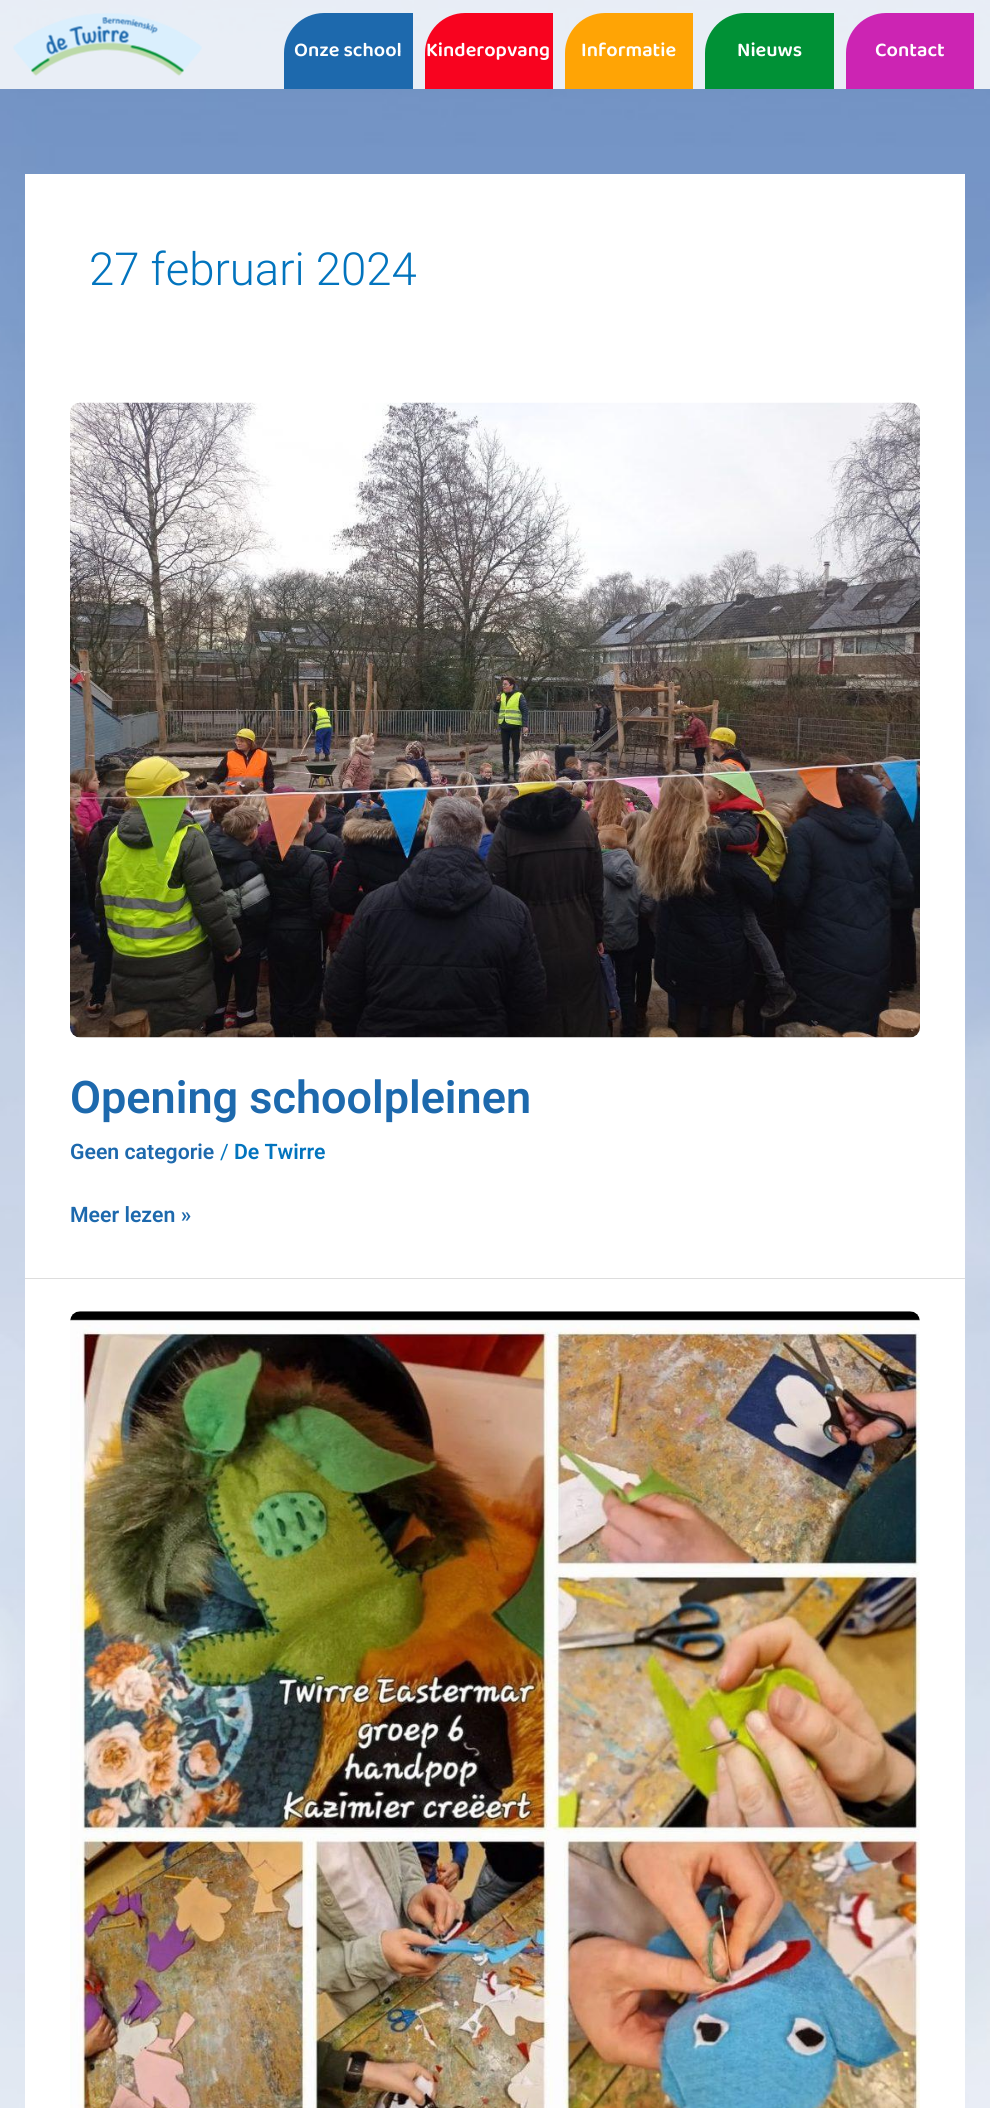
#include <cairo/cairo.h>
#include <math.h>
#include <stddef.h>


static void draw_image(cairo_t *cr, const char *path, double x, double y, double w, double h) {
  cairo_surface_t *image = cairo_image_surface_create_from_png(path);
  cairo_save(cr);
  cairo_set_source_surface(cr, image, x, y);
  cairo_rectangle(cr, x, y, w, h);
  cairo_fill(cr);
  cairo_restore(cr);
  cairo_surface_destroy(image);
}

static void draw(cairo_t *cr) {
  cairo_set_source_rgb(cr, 1, 1, 1);
  cairo_paint(cr);
  draw_image(cr, "images/1.png", 0, 0, 990, 2108);
  cairo_set_source_rgba(cr, 1, 1, 1, 0.84);
  cairo_rectangle(cr, 0, 0, 990, 89);
  cairo_fill(cr);
  draw_image(cr, "images/2.png", 13, 13, 189, 63);
  cairo_set_source_rgb(cr, 29 / 255.0, 105 / 255.0, 173 / 255.0);
  cairo_new_path(cr);
  cairo_move_to(cr, 324, 13);
  cairo_line_to(cr, 413, 13);
  cairo_line_to(cr, 413, 89);
  cairo_line_to(cr, 284, 89);
  cairo_line_to(cr, 284, 53);
  cairo_curve_to(cr, 284, 31, 302, 13, 324, 13);
  cairo_close_path(cr);
  cairo_fill(cr);
  cairo_set_source_rgb(cr, 248 / 255.0, 3 / 255.0, 31 / 255.0);
  cairo_new_path(cr);
  cairo_move_to(cr, 465, 13);
  cairo_line_to(cr, 553, 13);
  cairo_line_to(cr, 553, 89);
  cairo_line_to(cr, 425, 89);
  cairo_line_to(cr, 425, 53);
  cairo_curve_to(cr, 425, 31, 443, 13, 465, 13);
  cairo_close_path(cr);
  cairo_fill(cr);
  cairo_set_source_rgb(cr, 1, 164 / 255.0, 5 / 255.0);
  cairo_new_path(cr);
  cairo_move_to(cr, 605, 13);
  cairo_line_to(cr, 693, 13);
  cairo_line_to(cr, 693, 89);
  cairo_line_to(cr, 565, 89);
  cairo_line_to(cr, 565, 53);
  cairo_curve_to(cr, 565, 31, 583, 13, 605, 13);
  cairo_close_path(cr);
  cairo_fill(cr);
  cairo_set_source_rgb(cr, 0, 145 / 255.0, 54 / 255.0);
  cairo_new_path(cr);
  cairo_move_to(cr, 745, 13);
  cairo_line_to(cr, 834, 13);
  cairo_line_to(cr, 834, 89);
  cairo_line_to(cr, 705, 89);
  cairo_line_to(cr, 705, 53);
  cairo_curve_to(cr, 705, 31, 723, 13, 745, 13);
  cairo_close_path(cr);
  cairo_fill(cr);
  cairo_set_source_rgb(cr, 204 / 255.0, 36 / 255.0, 179 / 255.0);
  cairo_new_path(cr);
  cairo_move_to(cr, 886, 13);
  cairo_line_to(cr, 974, 13);
  cairo_line_to(cr, 974, 89);
  cairo_line_to(cr, 846, 89);
  cairo_line_to(cr, 846, 53);
  cairo_curve_to(cr, 846, 31, 864, 13, 886, 13);
  cairo_close_path(cr);
  cairo_fill(cr);
  cairo_set_source_rgb(cr, 1, 1, 1);
  cairo_rectangle(cr, 25, 174, 940, 1104);
  cairo_fill(cr);
  cairo_set_source_rgb(cr, 221 / 255.0, 221 / 255.0, 221 / 255.0);
  cairo_rectangle(cr, 25, 1278, 940, 1);
  cairo_fill(cr);
  draw_image(cr, "images/3.png", 70, 402, 850, 636);
  cairo_set_source_rgb(cr, 1, 1, 1);
  cairo_rectangle(cr, 25, 1279, 940, 829);
  cairo_fill(cr);
  draw_image(cr, "images/4.png", 70, 1311, 850, 797);
  cairo_select_font_face(cr, "Baloo Chettan 2 SemiBold", CAIRO_FONT_SLANT_NORMAL, CAIRO_FONT_WEIGHT_NORMAL);
  cairo_set_font_size(cr, 20);
  cairo_move_to(cr, 294, 56);
  cairo_show_text(cr, "Onze school");
  cairo_move_to(cr, 426, 56);
  cairo_show_text(cr, "Kinderopvang");
  cairo_move_to(cr, 581, 56);
  cairo_show_text(cr, "Informatie");
  cairo_move_to(cr, 737, 56);
  cairo_show_text(cr, "Nieuws");
  cairo_move_to(cr, 875, 56);
  cairo_show_text(cr, "Contact");
  cairo_select_font_face(cr, "Roboto Light", CAIRO_FONT_SLANT_NORMAL, CAIRO_FONT_WEIGHT_NORMAL);
  cairo_set_font_size(cr, 45.5);
  cairo_set_source_rgb(cr, 2 / 255.0, 116 / 255.0, 190 / 255.0);
  cairo_move_to(cr, 89, 285);
  cairo_show_text(cr, "27 februari 2024");
  cairo_select_font_face(cr, "Roboto SemiBold", CAIRO_FONT_SLANT_NORMAL, CAIRO_FONT_WEIGHT_NORMAL);
  cairo_set_font_size(cr, 45);
  cairo_set_source_rgb(cr, 29 / 255.0, 105 / 255.0, 173 / 255.0);
  cairo_move_to(cr, 70, 1113);
  cairo_show_text(cr, "Opening schoolpleinen");
  cairo_set_font_size(cr, 21.25);
  cairo_move_to(cr, 70, 1159);
  cairo_show_text(cr, "Geen categorie");
  cairo_select_font_face(cr, "Roboto", CAIRO_FONT_SLANT_NORMAL, CAIRO_FONT_WEIGHT_NORMAL);
  cairo_set_source_rgb(cr, 2 / 255.0, 116 / 255.0, 190 / 255.0);
  cairo_move_to(cr, 220, 1159);
  cairo_show_text(cr, "/");
  cairo_select_font_face(cr, "Roboto SemiBold", CAIRO_FONT_SLANT_NORMAL, CAIRO_FONT_WEIGHT_NORMAL);
  cairo_move_to(cr, 234, 1159);
  cairo_show_text(cr, "De Twirre");
  cairo_set_source_rgb(cr, 29 / 255.0, 105 / 255.0, 173 / 255.0);
  cairo_move_to(cr, 70, 1222);
  cairo_show_text(cr, "Meer lezen »");
}

int main(void) {
  cairo_surface_t *surface = cairo_image_surface_create(CAIRO_FORMAT_RGB24, 990, 2108);
  cairo_t *cr = cairo_create(surface);
  cairo_font_options_t *options = cairo_font_options_create();
  cairo_font_options_set_hint_metrics(options, CAIRO_HINT_METRICS_OFF);
  cairo_font_options_set_hint_style(options, CAIRO_HINT_STYLE_NONE);
  cairo_set_font_options(cr, options);
  cairo_set_miter_limit(cr, 4);
  draw(cr);
  cairo_surface_write_to_png(surface, "out.png");
  cairo_font_options_destroy(options);
  cairo_destroy(cr);
  cairo_surface_destroy(surface);
  return 0;
}
